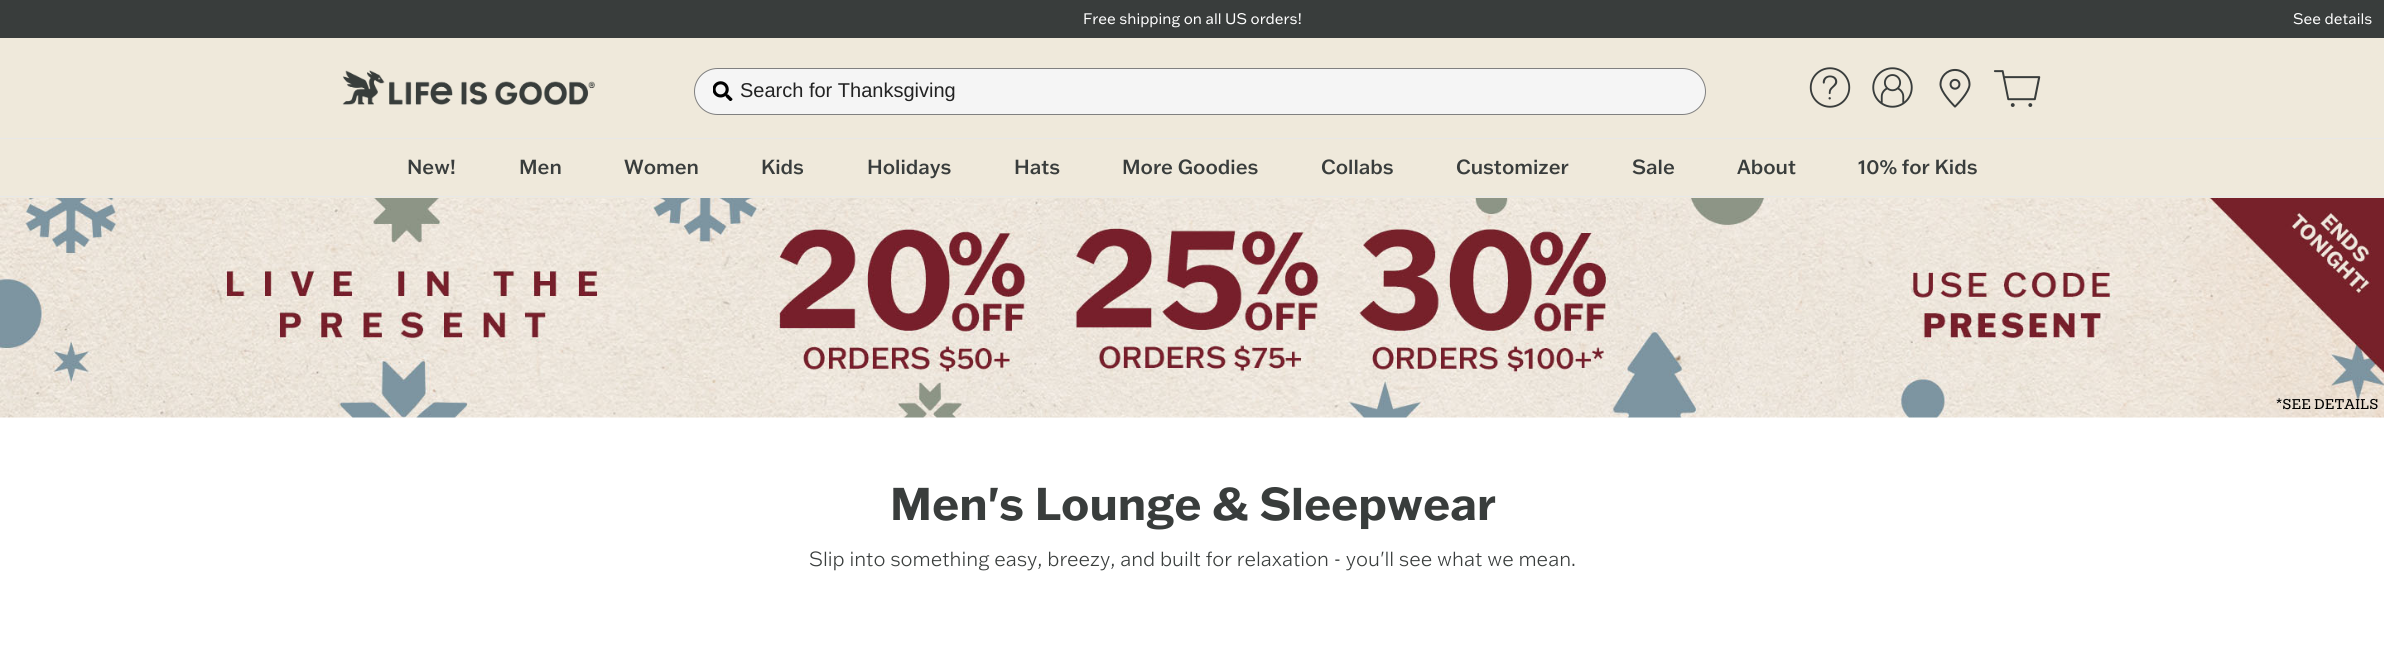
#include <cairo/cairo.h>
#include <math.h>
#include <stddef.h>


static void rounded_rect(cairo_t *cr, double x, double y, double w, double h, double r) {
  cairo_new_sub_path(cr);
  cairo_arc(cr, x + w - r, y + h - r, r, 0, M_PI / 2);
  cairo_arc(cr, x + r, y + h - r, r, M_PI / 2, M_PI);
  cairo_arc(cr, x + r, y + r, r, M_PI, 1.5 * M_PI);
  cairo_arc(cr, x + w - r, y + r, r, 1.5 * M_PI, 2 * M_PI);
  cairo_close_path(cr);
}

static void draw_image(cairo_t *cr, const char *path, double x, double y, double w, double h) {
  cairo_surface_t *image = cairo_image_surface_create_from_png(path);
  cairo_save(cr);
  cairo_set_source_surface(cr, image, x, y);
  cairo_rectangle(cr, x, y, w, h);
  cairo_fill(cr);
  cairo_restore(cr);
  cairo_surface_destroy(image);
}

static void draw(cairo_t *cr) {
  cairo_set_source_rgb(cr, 1, 1, 1);
  cairo_paint(cr);
  cairo_set_source_rgb(cr, 57 / 255.0, 61 / 255.0, 60 / 255.0);
  cairo_rectangle(cr, 0, 0, 2384, 38);
  cairo_fill(cr);
  cairo_set_source_rgb(cr, 239 / 255.0, 233 / 255.0, 219 / 255.0);
  cairo_rectangle(cr, 0, 38, 2384, 160);
  cairo_fill(cr);
  draw_image(cr, "images/1.png", 342, 70, 253, 35);
  cairo_set_source_rgb(cr, 245 / 255.0, 245 / 255.0, 245 / 255.0);
  rounded_rect(cr, 694.5, 68.5, 1011, 46, 23);
  cairo_fill_preserve(cr);
  cairo_set_source_rgb(cr, 128 / 255.0, 128 / 255.0, 128 / 255.0);
  cairo_set_line_width(cr, 1);
  cairo_stroke(cr);
  draw_image(cr, "images/2.png", 713, 81, 20, 20);
  draw_image(cr, "images/3.png", 1809, 67, 42, 41);
  draw_image(cr, "images/4.png", 1872, 67, 41, 41);
  draw_image(cr, "images/5.png", 1939, 68, 32, 40);
  draw_image(cr, "images/6.png", 1993, 70, 48, 37);
  cairo_set_source_rgb(cr, 232 / 255.0, 232 / 255.0, 232 / 255.0);
  cairo_rectangle(cr, 0, 138, 2384, 1);
  cairo_fill(cr);
  cairo_rectangle(cr, 0, 196, 2384, 1);
  cairo_fill(cr);
  draw_image(cr, "images/7.png", 0, 198, 2384, 220);
  cairo_select_font_face(cr, "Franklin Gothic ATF", CAIRO_FONT_SLANT_NORMAL, CAIRO_FONT_WEIGHT_NORMAL);
  cairo_set_font_size(cr, 15);
  cairo_set_source_rgb(cr, 1, 1, 1);
  cairo_move_to(cr, 1083, 24);
  cairo_show_text(cr, "Free shipping on all US orders!");
  cairo_move_to(cr, 2293, 24);
  cairo_show_text(cr, "See details");
  cairo_select_font_face(cr, "Liberation Sans", CAIRO_FONT_SLANT_NORMAL, CAIRO_FONT_WEIGHT_NORMAL);
  cairo_set_font_size(cr, 20);
  cairo_set_source_rgb(cr, 34 / 255.0, 34 / 255.0, 34 / 255.0);
  cairo_move_to(cr, 740, 97);
  cairo_show_text(cr, "Search for Thanksgiving");
  cairo_select_font_face(cr, "Franklin Gothic ATF Medium", CAIRO_FONT_SLANT_NORMAL, CAIRO_FONT_WEIGHT_NORMAL);
  cairo_set_source_rgb(cr, 57 / 255.0, 61 / 255.0, 60 / 255.0);
  cairo_move_to(cr, 407, 174);
  cairo_show_text(cr, "New!");
  cairo_move_to(cr, 519, 174);
  cairo_show_text(cr, "Men");
  cairo_move_to(cr, 624, 174);
  cairo_show_text(cr, "Women");
  cairo_move_to(cr, 761, 174);
  cairo_show_text(cr, "Kids");
  cairo_move_to(cr, 867, 174);
  cairo_show_text(cr, "Holidays");
  cairo_move_to(cr, 1014, 174);
  cairo_show_text(cr, "Hats");
  cairo_move_to(cr, 1122, 174);
  cairo_show_text(cr, "More Goodies");
  cairo_move_to(cr, 1321, 174);
  cairo_show_text(cr, "Collabs");
  cairo_move_to(cr, 1456, 174);
  cairo_show_text(cr, "Customizer");
  cairo_move_to(cr, 1632, 174);
  cairo_show_text(cr, "Sale");
  cairo_move_to(cr, 1737, 174);
  cairo_show_text(cr, "About");
  cairo_move_to(cr, 1858, 174);
  cairo_show_text(cr, "10% for Kids");
  cairo_select_font_face(cr, "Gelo", CAIRO_FONT_SLANT_NORMAL, CAIRO_FONT_WEIGHT_NORMAL);
  cairo_set_font_size(cr, 15);
  cairo_set_source_rgb(cr, 0, 0, 0);
  cairo_move_to(cr, 2276, 409);
  cairo_show_text(cr, "*SEE DETAILS");
  cairo_select_font_face(cr, "Franklin Gothic ATF", CAIRO_FONT_SLANT_NORMAL, CAIRO_FONT_WEIGHT_BOLD);
  cairo_set_font_size(cr, 45);
  cairo_set_source_rgb(cr, 57 / 255.0, 61 / 255.0, 60 / 255.0);
  cairo_move_to(cr, 890, 520);
  cairo_show_text(cr, "Men's Lounge & Sleepwear");
  cairo_select_font_face(cr, "Franklin Gothic ATF Light", CAIRO_FONT_SLANT_NORMAL, CAIRO_FONT_WEIGHT_NORMAL);
  cairo_set_font_size(cr, 20);
  cairo_move_to(cr, 809, 566);
  cairo_show_text(cr, "Slip into something easy, breezy, and built for relaxation - you'll see what we mean.");
}

int main(void) {
  cairo_surface_t *surface = cairo_image_surface_create(CAIRO_FORMAT_RGB24, 2384, 655);
  cairo_t *cr = cairo_create(surface);
  cairo_font_options_t *options = cairo_font_options_create();
  cairo_font_options_set_hint_metrics(options, CAIRO_HINT_METRICS_OFF);
  cairo_font_options_set_hint_style(options, CAIRO_HINT_STYLE_NONE);
  cairo_set_font_options(cr, options);
  cairo_set_miter_limit(cr, 4);
  draw(cr);
  cairo_surface_write_to_png(surface, "out.png");
  cairo_font_options_destroy(options);
  cairo_destroy(cr);
  cairo_surface_destroy(surface);
  return 0;
}
